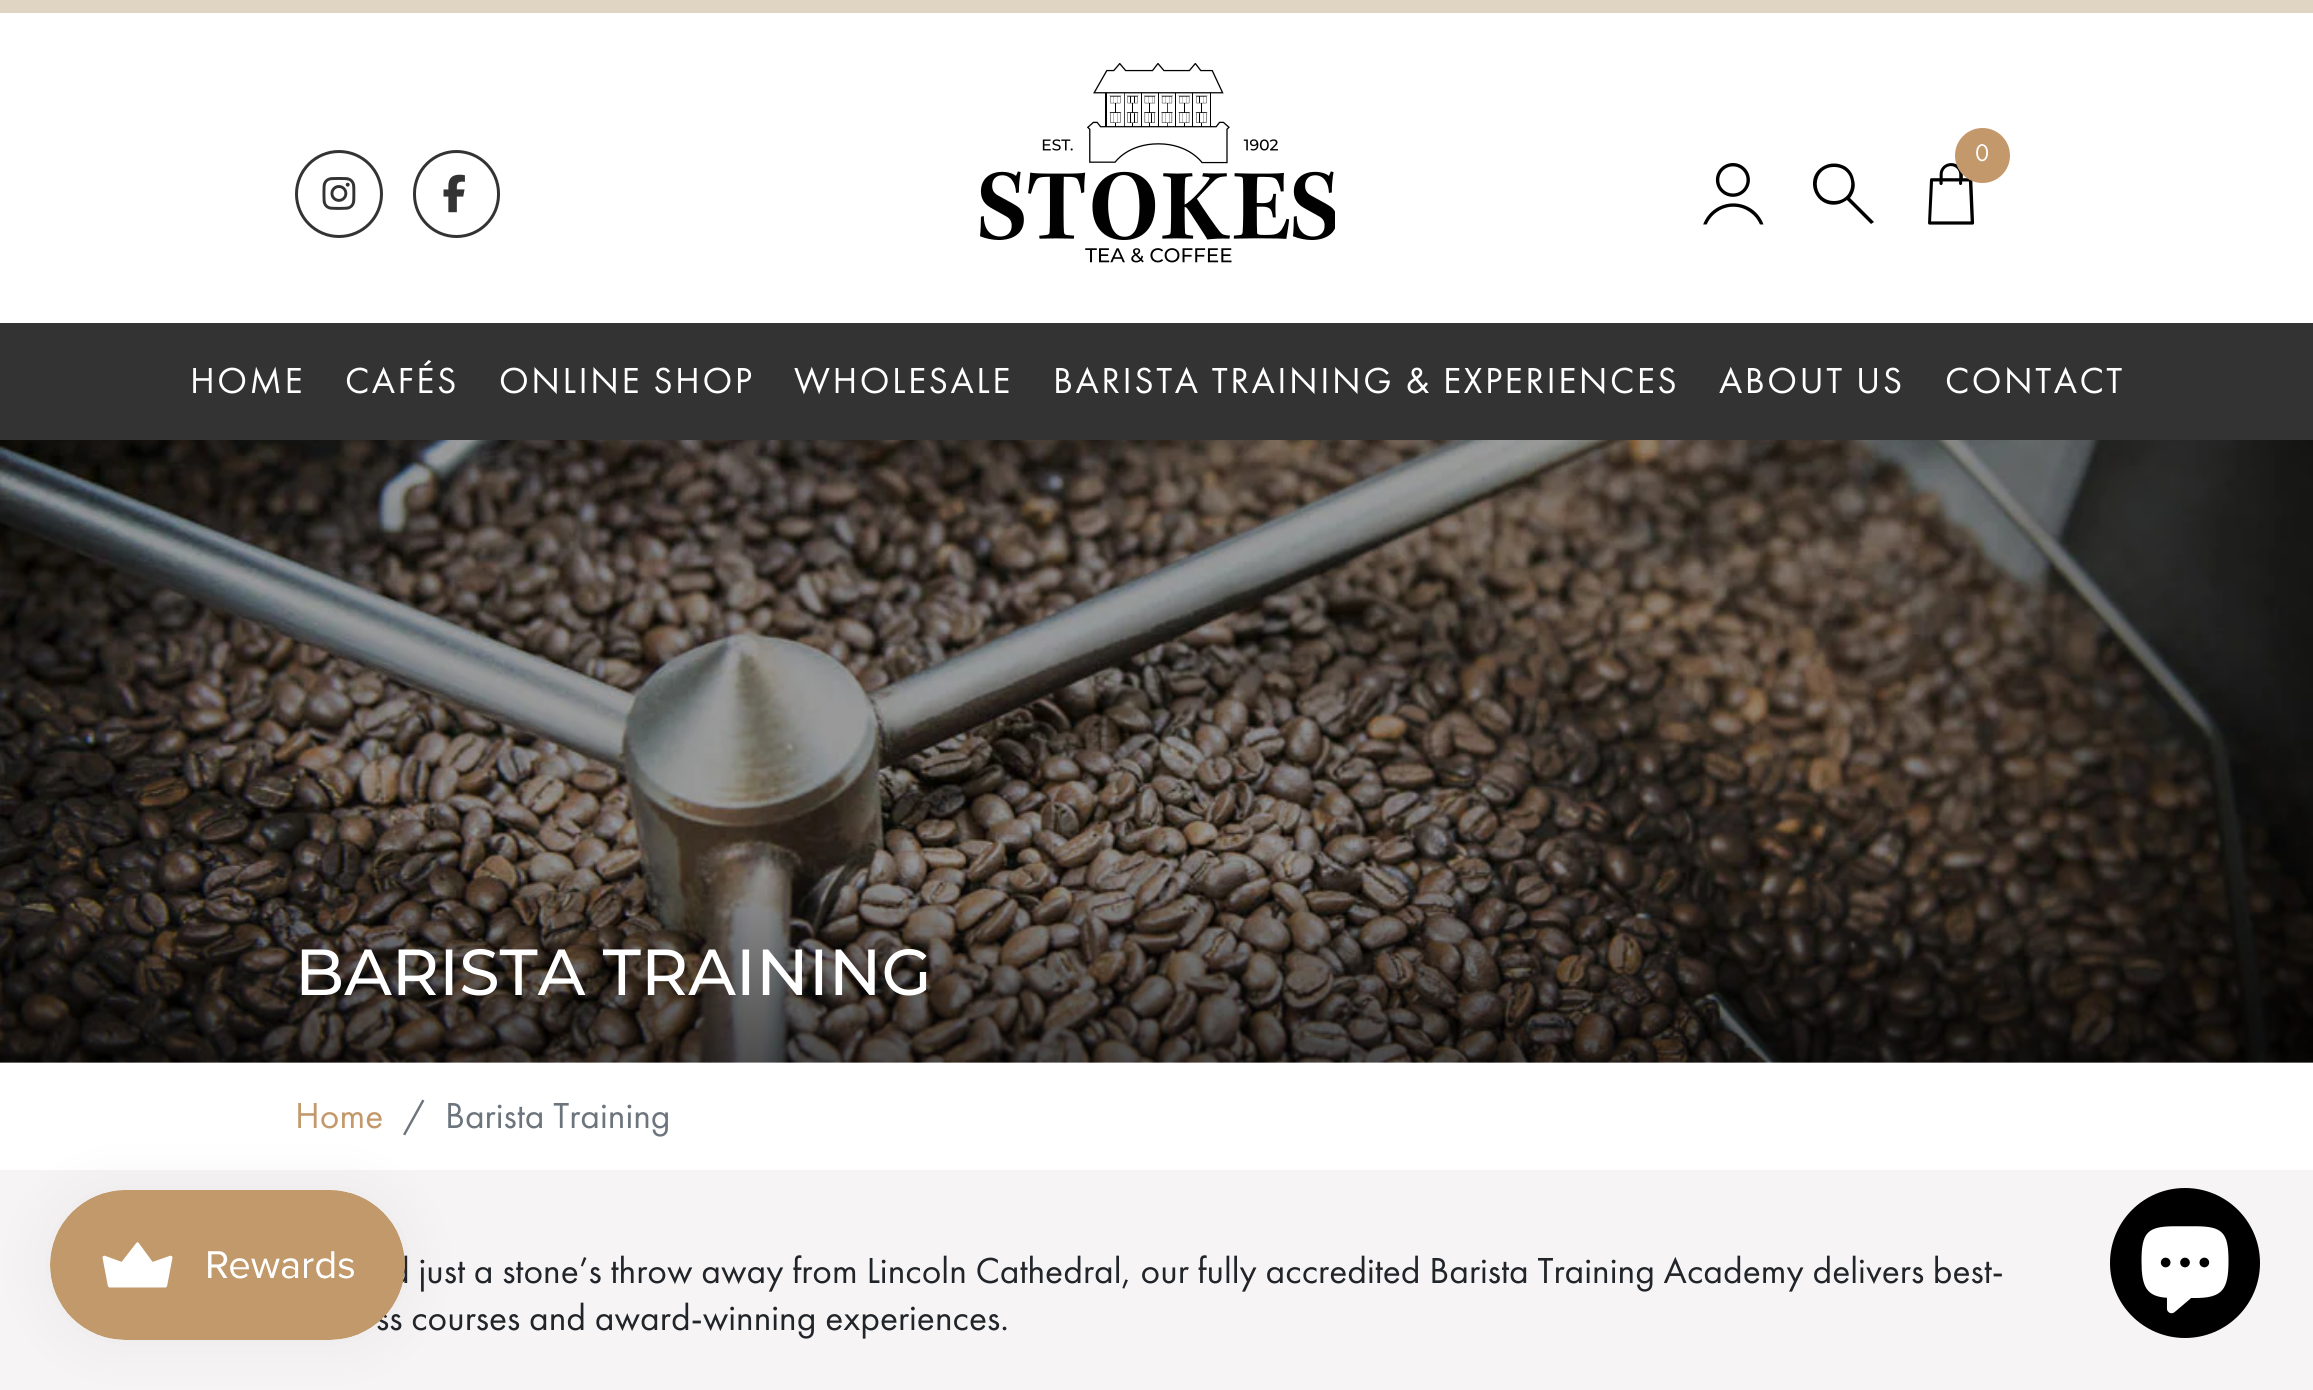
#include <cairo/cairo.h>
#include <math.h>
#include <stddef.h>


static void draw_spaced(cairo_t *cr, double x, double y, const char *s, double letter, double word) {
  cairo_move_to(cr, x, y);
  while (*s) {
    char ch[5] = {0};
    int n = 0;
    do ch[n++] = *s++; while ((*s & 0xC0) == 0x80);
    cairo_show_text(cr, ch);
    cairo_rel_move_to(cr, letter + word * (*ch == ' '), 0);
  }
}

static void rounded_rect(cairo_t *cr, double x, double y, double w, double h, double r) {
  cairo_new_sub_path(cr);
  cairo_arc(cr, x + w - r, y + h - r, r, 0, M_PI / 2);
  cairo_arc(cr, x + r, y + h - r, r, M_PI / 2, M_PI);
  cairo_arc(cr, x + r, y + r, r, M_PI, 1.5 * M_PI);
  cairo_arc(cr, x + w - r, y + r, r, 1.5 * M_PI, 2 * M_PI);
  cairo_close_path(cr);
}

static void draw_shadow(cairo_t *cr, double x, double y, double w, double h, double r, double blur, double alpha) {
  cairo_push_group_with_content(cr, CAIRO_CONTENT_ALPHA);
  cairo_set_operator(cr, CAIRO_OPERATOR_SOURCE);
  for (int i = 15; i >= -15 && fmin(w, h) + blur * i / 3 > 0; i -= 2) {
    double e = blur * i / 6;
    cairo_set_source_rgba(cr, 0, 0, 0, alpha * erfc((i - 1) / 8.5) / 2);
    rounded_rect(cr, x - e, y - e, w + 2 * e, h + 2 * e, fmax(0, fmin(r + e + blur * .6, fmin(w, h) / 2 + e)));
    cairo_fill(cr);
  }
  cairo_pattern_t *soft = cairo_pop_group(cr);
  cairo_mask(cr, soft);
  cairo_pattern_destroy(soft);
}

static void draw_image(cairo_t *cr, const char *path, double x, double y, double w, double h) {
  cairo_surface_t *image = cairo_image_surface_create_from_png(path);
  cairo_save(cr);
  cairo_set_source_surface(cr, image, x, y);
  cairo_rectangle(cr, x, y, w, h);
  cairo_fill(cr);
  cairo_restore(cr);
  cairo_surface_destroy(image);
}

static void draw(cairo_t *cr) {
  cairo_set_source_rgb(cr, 246 / 255.0, 244 / 255.0, 245 / 255.0);
  cairo_paint(cr);
  cairo_set_source_rgb(cr, 1, 1, 1);
  cairo_rectangle(cr, 0, 13, 2313, 310);
  cairo_fill(cr);
  cairo_set_source_rgb(cr, 224 / 255.0, 213 / 255.0, 195 / 255.0);
  cairo_rectangle(cr, 0, 0, 2313, 13);
  cairo_fill(cr);
  cairo_arc(cr, 339, 194, 42.5, 0, 2 * M_PI);
  cairo_set_source_rgb(cr, 51 / 255.0, 51 / 255.0, 51 / 255.0);
  cairo_set_line_width(cr, 3);
  cairo_stroke(cr);
  draw_image(cr, "images/1.png", 322, 177, 34, 33);
  rounded_rect(cr, 414.5, 151.5, 84, 85, 42);
  cairo_stroke(cr);
  draw_image(cr, "images/2.png", 443, 174, 22, 39);
  draw_image(cr, "images/3.png", 980, 63, 355, 200);
  draw_image(cr, "images/4.png", 1928, 163, 47, 62);
  cairo_set_source_rgb(cr, 195 / 255.0, 153 / 255.0, 107 / 255.0);
  cairo_arc(cr, 1982.5, 155.5, 27.5, 0, 2 * M_PI);
  cairo_fill(cr);
  draw_image(cr, "images/5.png", 1703, 163, 61, 62);
  cairo_set_source_rgb(cr, 0, 0, 0);
  cairo_new_path(cr);
  cairo_move_to(cr, 1847, 200);
  cairo_curve_to(cr, 1844, 202, 1842, 203, 1839, 204);
  cairo_curve_to(cr, 1814, 210, 1802, 175, 1826, 165);
  cairo_curve_to(cr, 1831, 163, 1837, 163, 1842, 165);
  cairo_curve_to(cr, 1848, 167, 1853, 173, 1854, 180);
  cairo_curve_to(cr, 1856, 186, 1854, 193, 1850, 198);
  cairo_line_to(cr, 1874, 222);
  cairo_line_to(cr, 1871, 224);
  cairo_close_path(cr);
  cairo_move_to(cr, 1834, 167);
  cairo_curve_to(cr, 1811, 167, 1811, 201, 1834, 201);
  cairo_curve_to(cr, 1857, 201, 1857, 167, 1834, 167);
  cairo_close_path(cr);
  cairo_fill(cr);
  cairo_set_source_rgb(cr, 51 / 255.0, 51 / 255.0, 51 / 255.0);
  cairo_rectangle(cr, 0, 323, 2313, 117);
  cairo_fill(cr);
  cairo_set_source_rgb(cr, 1, 1, 1);
  cairo_rectangle(cr, 0, 1063, 2313, 107);
  cairo_fill(cr);
  cairo_set_source_rgb(cr, 0, 0, 0);
  draw_shadow(cr, 50, 1190, 355, 150, 75, 31, 0.05);
  draw_image(cr, "images/7.png", 0, 440, 2313, 623);
  cairo_set_source_rgb(cr, 0, 0, 0);
  cairo_arc(cr, 2185, 1263, 75, 0, 2 * M_PI);
  cairo_fill(cr);
  draw_image(cr, "images/8.png", 2141, 1226, 88, 88);
  cairo_select_font_face(cr, "Futura PT", CAIRO_FONT_SLANT_NORMAL, CAIRO_FONT_WEIGHT_NORMAL);
  cairo_set_font_size(cr, 25);
  cairo_set_source_rgb(cr, 1, 1, 1);
  cairo_move_to(cr, 1975, 161);
  cairo_show_text(cr, "0");
  cairo_set_font_size(cr, 37.5);
  draw_spaced(cr, 190, 393, "HOME", 2.5, 0);
  draw_spaced(cr, 345, 393, "CAFÉS", 2.5, 0);
  draw_spaced(cr, 499, 393, "ONLINE SHOP", 2.5, 0);
  draw_spaced(cr, 794, 393, "WHOLESALE", 2.5, 0);
  draw_spaced(cr, 1053, 393, "BARISTA TRAINING & EXPERIENCES", 2.5, 0);
  draw_spaced(cr, 1719, 393, "ABOUT US", 2.5, 0);
  draw_spaced(cr, 1945, 393, "CONTACT", 2.5, 0);
  cairo_select_font_face(cr, "Montserrat Medium", CAIRO_FONT_SLANT_NORMAL, CAIRO_FONT_WEIGHT_NORMAL);
  cairo_set_font_size(cr, 65);
  cairo_move_to(cr, 295, 995);
  cairo_show_text(cr, "BARISTA TRAINING");
  cairo_select_font_face(cr, "Futura PT", CAIRO_FONT_SLANT_NORMAL, CAIRO_FONT_WEIGHT_NORMAL);
  cairo_set_font_size(cr, 37.5);
  cairo_set_source_rgb(cr, 195 / 255.0, 153 / 255.0, 107 / 255.0);
  cairo_move_to(cr, 295, 1128);
  cairo_show_text(cr, "Home");
  cairo_set_source_rgb(cr, 108 / 255.0, 117 / 255.0, 125 / 255.0);
  cairo_move_to(cr, 403, 1128);
  cairo_show_text(cr, "/");
  cairo_move_to(cr, 445, 1128);
  cairo_show_text(cr, "Barista Training");
  cairo_set_source_rgb(cr, 33 / 255.0, 37 / 255.0, 41 / 255.0);
  cairo_move_to(cr, 390, 1283);
  cairo_show_text(cr, "d just a stone’s throw away from Lincoln Cathedral, our fully accredited Barista Training Academy delivers best-");
  cairo_move_to(cr, 376, 1330);
  cairo_show_text(cr, "ss courses and award-winning experiences.");
  draw_image(cr, "images/6.png", 50, 1190, 355, 150);
}

int main(void) {
  cairo_surface_t *surface = cairo_image_surface_create(CAIRO_FORMAT_RGB24, 2313, 1390);
  cairo_t *cr = cairo_create(surface);
  cairo_font_options_t *options = cairo_font_options_create();
  cairo_font_options_set_hint_metrics(options, CAIRO_HINT_METRICS_OFF);
  cairo_font_options_set_hint_style(options, CAIRO_HINT_STYLE_NONE);
  cairo_set_font_options(cr, options);
  cairo_set_miter_limit(cr, 4);
  draw(cr);
  cairo_surface_write_to_png(surface, "out.png");
  cairo_font_options_destroy(options);
  cairo_destroy(cr);
  cairo_surface_destroy(surface);
  return 0;
}
